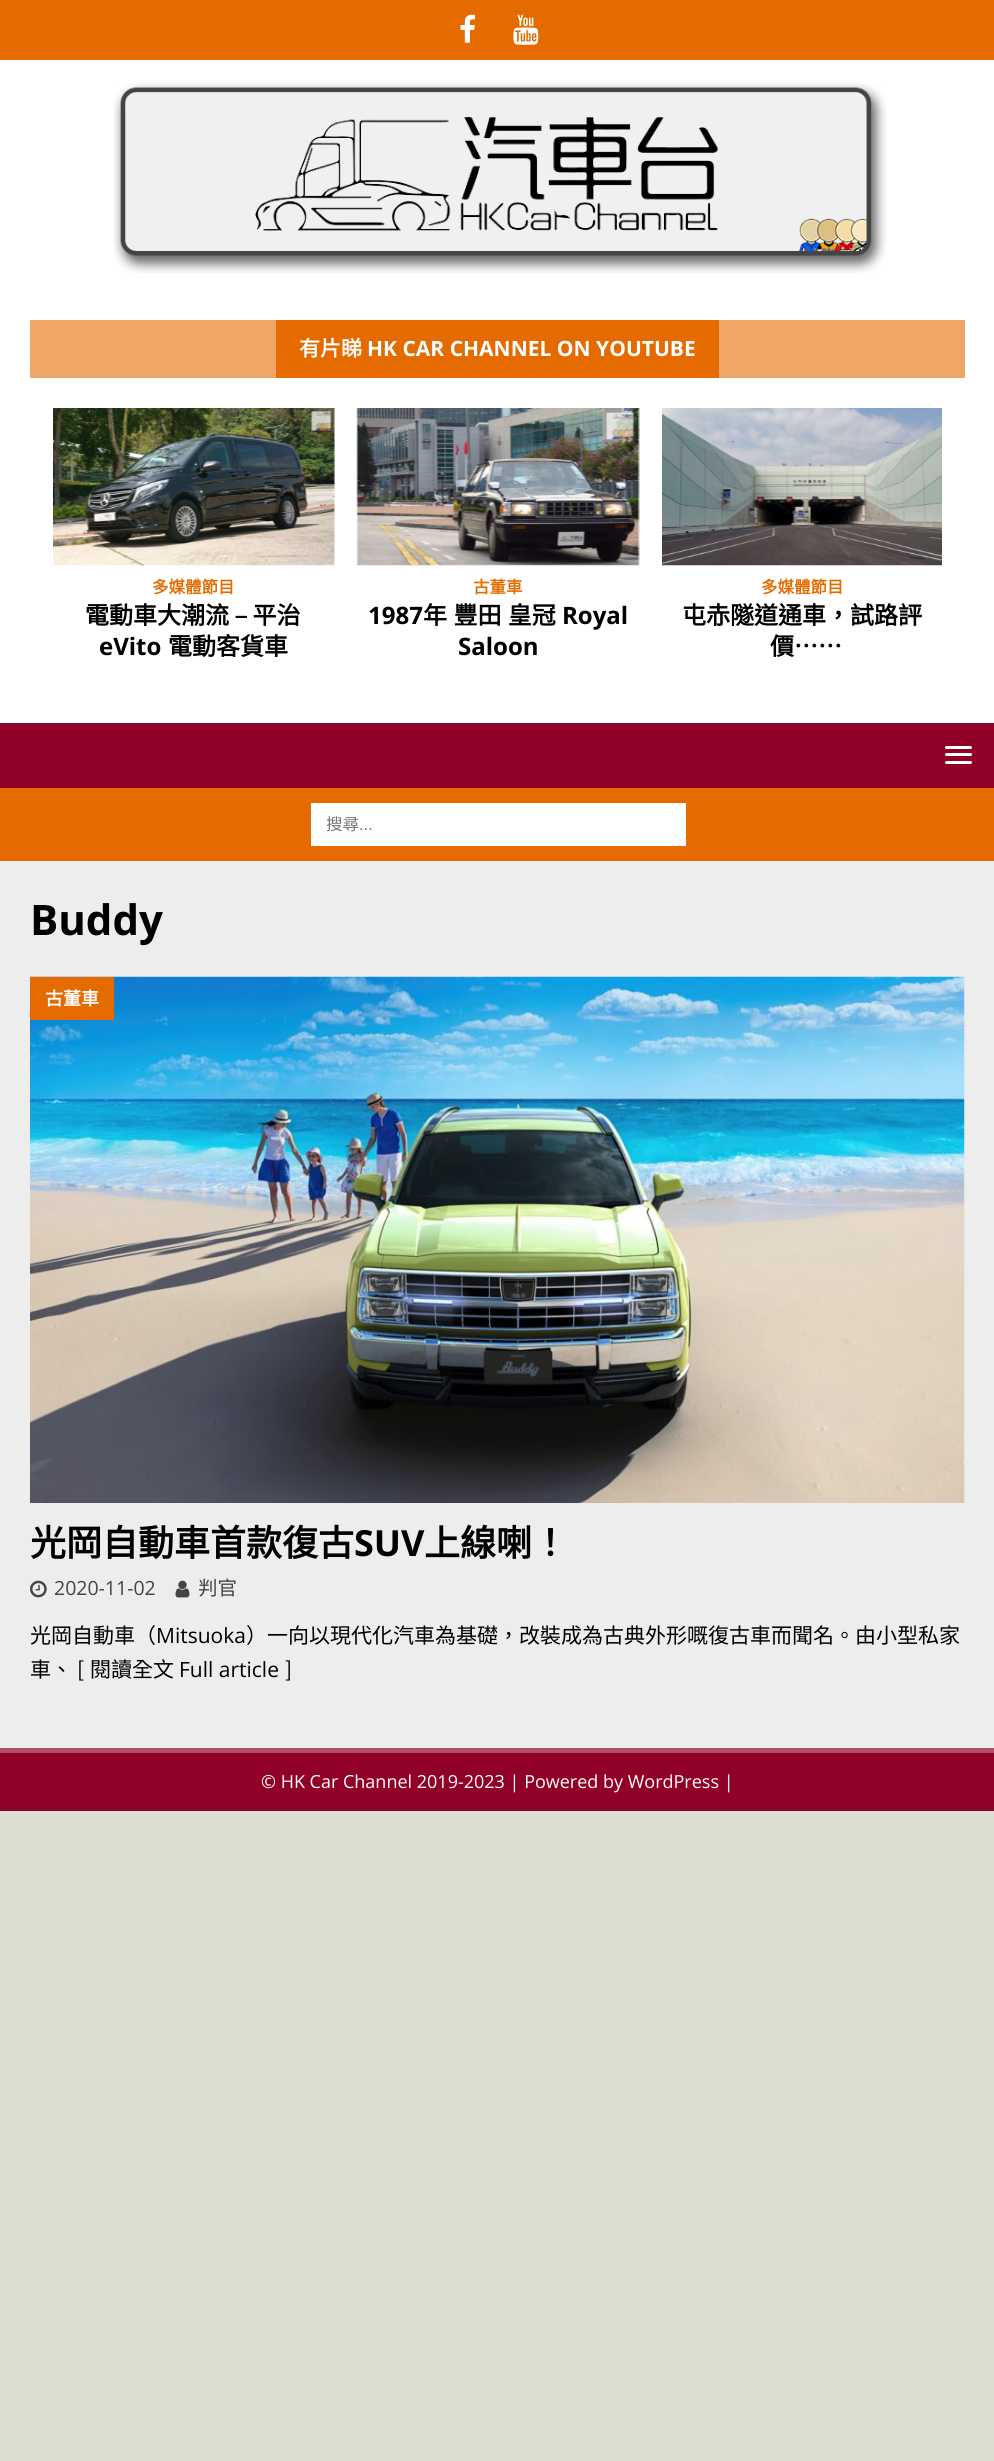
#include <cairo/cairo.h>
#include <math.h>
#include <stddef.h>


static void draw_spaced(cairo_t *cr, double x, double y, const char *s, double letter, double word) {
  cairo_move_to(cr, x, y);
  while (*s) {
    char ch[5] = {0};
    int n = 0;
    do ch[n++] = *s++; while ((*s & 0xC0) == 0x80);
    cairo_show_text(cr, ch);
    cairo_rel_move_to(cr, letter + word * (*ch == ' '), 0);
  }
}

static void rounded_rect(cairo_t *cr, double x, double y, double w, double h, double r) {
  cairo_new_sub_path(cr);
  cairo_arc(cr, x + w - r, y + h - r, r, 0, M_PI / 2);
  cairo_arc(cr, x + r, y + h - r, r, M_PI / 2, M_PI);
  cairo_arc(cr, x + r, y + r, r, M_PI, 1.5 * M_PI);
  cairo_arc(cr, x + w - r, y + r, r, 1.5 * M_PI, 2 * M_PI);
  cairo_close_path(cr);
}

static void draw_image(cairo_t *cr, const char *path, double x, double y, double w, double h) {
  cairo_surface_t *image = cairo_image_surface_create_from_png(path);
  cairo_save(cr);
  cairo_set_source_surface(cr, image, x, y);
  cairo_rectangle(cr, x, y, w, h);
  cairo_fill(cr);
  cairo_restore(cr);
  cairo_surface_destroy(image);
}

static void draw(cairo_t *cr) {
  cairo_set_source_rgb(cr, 221 / 255.0, 221 / 255.0, 208 / 255.0);
  cairo_paint(cr);
  cairo_set_source_rgb(cr, 229 / 255.0, 107 / 255.0, 0);
  cairo_rectangle(cr, 0, 0, 994, 60);
  cairo_fill(cr);
  draw_image(cr, "images/1.png", 460, 14, 16, 29);
  draw_image(cr, "images/2.png", 513, 14, 26, 31);
  cairo_set_source_rgb(cr, 1, 1, 1);
  cairo_rectangle(cr, 0, 60, 994, 663);
  cairo_fill(cr);
  draw_image(cr, "images/3.png", 113, 82, 774, 192);
  cairo_set_source_rgb(cr, 239 / 255.0, 166 / 255.0, 102 / 255.0);
  cairo_rectangle(cr, 30, 320, 935, 58);
  cairo_fill(cr);
  cairo_set_source_rgb(cr, 229 / 255.0, 107 / 255.0, 0);
  cairo_rectangle(cr, 276, 320, 443, 58);
  cairo_fill(cr);
  draw_image(cr, "images/4.png", 53, 408, 282, 158);
  draw_image(cr, "images/5.png", 356, 408, 284, 158);
  draw_image(cr, "images/6.png", 662, 408, 280, 158);
  cairo_set_source_rgb(cr, 145 / 255.0, 0, 38 / 255.0);
  cairo_rectangle(cr, 0, 723, 994, 65);
  cairo_fill(cr);
  cairo_set_source_rgb(cr, 1, 1, 1);
  rounded_rect(cr, 945, 746, 27, 3, 1.5);
  cairo_fill(cr);
  rounded_rect(cr, 945, 753, 27, 3, 1.5);
  cairo_fill(cr);
  rounded_rect(cr, 945, 761, 27, 3, 1.5);
  cairo_fill(cr);
  cairo_set_source_rgb(cr, 229 / 255.0, 107 / 255.0, 0);
  cairo_rectangle(cr, 0, 788, 994, 73);
  cairo_fill(cr);
  cairo_set_source_rgb(cr, 1, 1, 1);
  cairo_rectangle(cr, 311, 803, 375, 43);
  cairo_fill(cr);
  cairo_set_source_rgb(cr, 237 / 255.0, 237 / 255.0, 237 / 255.0);
  cairo_rectangle(cr, 0, 861, 994, 887);
  cairo_fill(cr);
  cairo_new_path(cr);
  cairo_move_to(cr, 30, 1717);
  cairo_line_to(cr, 964.5, 1717);
  cairo_set_source_rgb(cr, 242 / 255.0, 242 / 255.0, 242 / 255.0);
  cairo_set_line_width(cr, 1.5);
  cairo_set_dash(cr, (double[]){1.5, 1.5}, 2, 0);
  cairo_stroke(cr);
  draw_image(cr, "images/7.png", 30, 976, 935, 527);
  cairo_set_source_rgb(cr, 229 / 255.0, 107 / 255.0, 0);
  cairo_rectangle(cr, 30, 977, 84, 43);
  cairo_fill(cr);
  draw_image(cr, "images/8.png", 30, 1580, 17, 18);
  draw_image(cr, "images/9.png", 175, 1580, 15, 18);
  cairo_set_source_rgb(cr, 145 / 255.0, 0, 38 / 255.0);
  cairo_rectangle(cr, 0, 1753, 994, 58);
  cairo_fill(cr);
  cairo_set_source_rgb(cr, 178 / 255.0, 77 / 255.0, 103 / 255.0);
  cairo_rectangle(cr, 0, 1748, 994, 5);
  cairo_fill(cr);
  cairo_select_font_face(cr, "Noto Sans CJK HK", CAIRO_FONT_SLANT_NORMAL, CAIRO_FONT_WEIGHT_BOLD);
  cairo_set_font_size(cr, 21);
  cairo_set_source_rgb(cr, 1, 1, 1);
  cairo_move_to(cr, 299, 356);
  cairo_show_text(cr, "有片睇");
  cairo_select_font_face(cr, "Open Sans", CAIRO_FONT_SLANT_NORMAL, CAIRO_FONT_WEIGHT_BOLD);
  cairo_move_to(cr, 367, 356);
  cairo_show_text(cr, "HK CAR CHANNEL ON YOUTUBE");
  cairo_select_font_face(cr, "Noto Sans CJK HK", CAIRO_FONT_SLANT_NORMAL, CAIRO_FONT_WEIGHT_BOLD);
  cairo_set_font_size(cr, 16.5);
  cairo_set_source_rgb(cr, 229 / 255.0, 107 / 255.0, 0);
  cairo_move_to(cr, 152, 593);
  cairo_show_text(cr, "多媒體節目");
  cairo_set_font_size(cr, 24);
  cairo_set_source_rgb(cr, 0, 0, 0);
  cairo_move_to(cr, 85, 624);
  cairo_show_text(cr, "電動車大潮流 – 平治");
  cairo_select_font_face(cr, "Open Sans", CAIRO_FONT_SLANT_NORMAL, CAIRO_FONT_WEIGHT_BOLD);
  cairo_move_to(cr, 99, 655);
  cairo_show_text(cr, "eVito");
  cairo_select_font_face(cr, "Noto Sans CJK HK", CAIRO_FONT_SLANT_NORMAL, CAIRO_FONT_WEIGHT_BOLD);
  cairo_move_to(cr, 168, 655);
  cairo_show_text(cr, "電動客貨車");
  cairo_set_font_size(cr, 16.5);
  cairo_set_source_rgb(cr, 229 / 255.0, 107 / 255.0, 0);
  cairo_move_to(cr, 473, 593);
  cairo_show_text(cr, "古董車");
  cairo_select_font_face(cr, "Open Sans", CAIRO_FONT_SLANT_NORMAL, CAIRO_FONT_WEIGHT_BOLD);
  cairo_set_font_size(cr, 24);
  cairo_set_source_rgb(cr, 0, 0, 0);
  cairo_move_to(cr, 368, 624);
  cairo_show_text(cr, "1987");
  cairo_select_font_face(cr, "Noto Sans CJK HK", CAIRO_FONT_SLANT_NORMAL, CAIRO_FONT_WEIGHT_BOLD);
  draw_spaced(cr, 423, 624, "年 豐田 皇冠", 0, 1);
  cairo_select_font_face(cr, "Open Sans", CAIRO_FONT_SLANT_NORMAL, CAIRO_FONT_WEIGHT_BOLD);
  cairo_move_to(cr, 562, 624);
  cairo_show_text(cr, "Royal");
  cairo_move_to(cr, 458, 655);
  cairo_show_text(cr, "Saloon");
  cairo_select_font_face(cr, "Noto Sans CJK HK", CAIRO_FONT_SLANT_NORMAL, CAIRO_FONT_WEIGHT_BOLD);
  cairo_set_font_size(cr, 16.5);
  cairo_set_source_rgb(cr, 229 / 255.0, 107 / 255.0, 0);
  cairo_move_to(cr, 761, 593);
  cairo_show_text(cr, "多媒體節目");
  cairo_set_font_size(cr, 24);
  cairo_set_source_rgb(cr, 0, 0, 0);
  cairo_move_to(cr, 682, 624);
  cairo_show_text(cr, "屯赤隧道通車，試路評");
  cairo_move_to(cr, 770, 655);
  cairo_show_text(cr, "價……");
  cairo_select_font_face(cr, "Noto Sans CJK HK", CAIRO_FONT_SLANT_NORMAL, CAIRO_FONT_WEIGHT_NORMAL);
  cairo_set_font_size(cr, 16.5);
  cairo_set_source_rgb(cr, 117 / 255.0, 117 / 255.0, 117 / 255.0);
  cairo_move_to(cr, 326, 830);
  cairo_show_text(cr, "搜尋");
  cairo_select_font_face(cr, "Liberation Sans", CAIRO_FONT_SLANT_NORMAL, CAIRO_FONT_WEIGHT_NORMAL);
  cairo_move_to(cr, 359, 830);
  cairo_show_text(cr, "...");
  cairo_select_font_face(cr, "Open Sans", CAIRO_FONT_SLANT_NORMAL, CAIRO_FONT_WEIGHT_BOLD);
  cairo_set_font_size(cr, 42);
  cairo_set_source_rgb(cr, 0, 0, 0);
  cairo_move_to(cr, 30, 935);
  cairo_show_text(cr, "Buddy");
  cairo_select_font_face(cr, "Noto Sans CJK HK", CAIRO_FONT_SLANT_NORMAL, CAIRO_FONT_WEIGHT_BOLD);
  cairo_set_font_size(cr, 18);
  cairo_set_source_rgb(cr, 1, 1, 1);
  cairo_move_to(cr, 45, 1005);
  cairo_show_text(cr, "古董車");
  cairo_set_font_size(cr, 36);
  cairo_set_source_rgb(cr, 0, 0, 0);
  cairo_move_to(cr, 30, 1556);
  cairo_show_text(cr, "光岡自動車首款復古");
  cairo_select_font_face(cr, "Open Sans", CAIRO_FONT_SLANT_NORMAL, CAIRO_FONT_WEIGHT_BOLD);
  cairo_move_to(cr, 354, 1556);
  cairo_show_text(cr, "SUV");
  cairo_select_font_face(cr, "Noto Sans CJK HK", CAIRO_FONT_SLANT_NORMAL, CAIRO_FONT_WEIGHT_BOLD);
  cairo_move_to(cr, 424, 1556);
  cairo_show_text(cr, "上線喇！");
  cairo_select_font_face(cr, "Open Sans", CAIRO_FONT_SLANT_NORMAL, CAIRO_FONT_WEIGHT_NORMAL);
  cairo_set_font_size(cr, 19.5);
  cairo_set_source_rgb(cr, 68 / 255.0, 68 / 255.0, 68 / 255.0);
  cairo_move_to(cr, 54, 1595);
  cairo_show_text(cr, "2020-11-02");
  cairo_select_font_face(cr, "Noto Sans CJK HK", CAIRO_FONT_SLANT_NORMAL, CAIRO_FONT_WEIGHT_NORMAL);
  cairo_move_to(cr, 198, 1595);
  cairo_show_text(cr, "判官");
  cairo_set_font_size(cr, 21);
  cairo_set_source_rgb(cr, 0, 0, 0);
  cairo_move_to(cr, 30, 1643);
  cairo_show_text(cr, "光岡自動車（");
  cairo_select_font_face(cr, "Open Sans", CAIRO_FONT_SLANT_NORMAL, CAIRO_FONT_WEIGHT_NORMAL);
  cairo_move_to(cr, 156, 1643);
  cairo_show_text(cr, "Mitsuoka");
  cairo_select_font_face(cr, "Noto Sans CJK HK", CAIRO_FONT_SLANT_NORMAL, CAIRO_FONT_WEIGHT_NORMAL);
  cairo_move_to(cr, 246, 1643);
  cairo_show_text(cr, "）一向以現代化汽車為基礎，改裝成為古典外形嘅復古車而聞名。由小型私家");
  cairo_move_to(cr, 30, 1677);
  cairo_show_text(cr, "車、");
  cairo_move_to(cr, 77, 1677);
  cairo_show_text(cr, "[");
  cairo_move_to(cr, 90, 1677);
  cairo_show_text(cr, "閱讀全文");
  cairo_select_font_face(cr, "Open Sans", CAIRO_FONT_SLANT_NORMAL, CAIRO_FONT_WEIGHT_NORMAL);
  cairo_move_to(cr, 179, 1677);
  cairo_show_text(cr, "Full article");
  cairo_select_font_face(cr, "Noto Sans CJK HK", CAIRO_FONT_SLANT_NORMAL, CAIRO_FONT_WEIGHT_NORMAL);
  cairo_move_to(cr, 285, 1677);
  cairo_show_text(cr, "]");
  cairo_select_font_face(cr, "Open Sans", CAIRO_FONT_SLANT_NORMAL, CAIRO_FONT_WEIGHT_NORMAL);
  cairo_set_font_size(cr, 18);
  cairo_set_source_rgb(cr, 1, 1, 1);
  cairo_move_to(cr, 261, 1788);
  cairo_show_text(cr, "© HK Car Channel 2019-2023 | Powered by WordPress |");
}

int main(void) {
  cairo_surface_t *surface = cairo_image_surface_create(CAIRO_FORMAT_RGB24, 994, 2461);
  cairo_t *cr = cairo_create(surface);
  cairo_font_options_t *options = cairo_font_options_create();
  cairo_font_options_set_hint_metrics(options, CAIRO_HINT_METRICS_OFF);
  cairo_font_options_set_hint_style(options, CAIRO_HINT_STYLE_NONE);
  cairo_set_font_options(cr, options);
  cairo_set_miter_limit(cr, 4);
  draw(cr);
  cairo_surface_write_to_png(surface, "out.png");
  cairo_font_options_destroy(options);
  cairo_destroy(cr);
  cairo_surface_destroy(surface);
  return 0;
}
